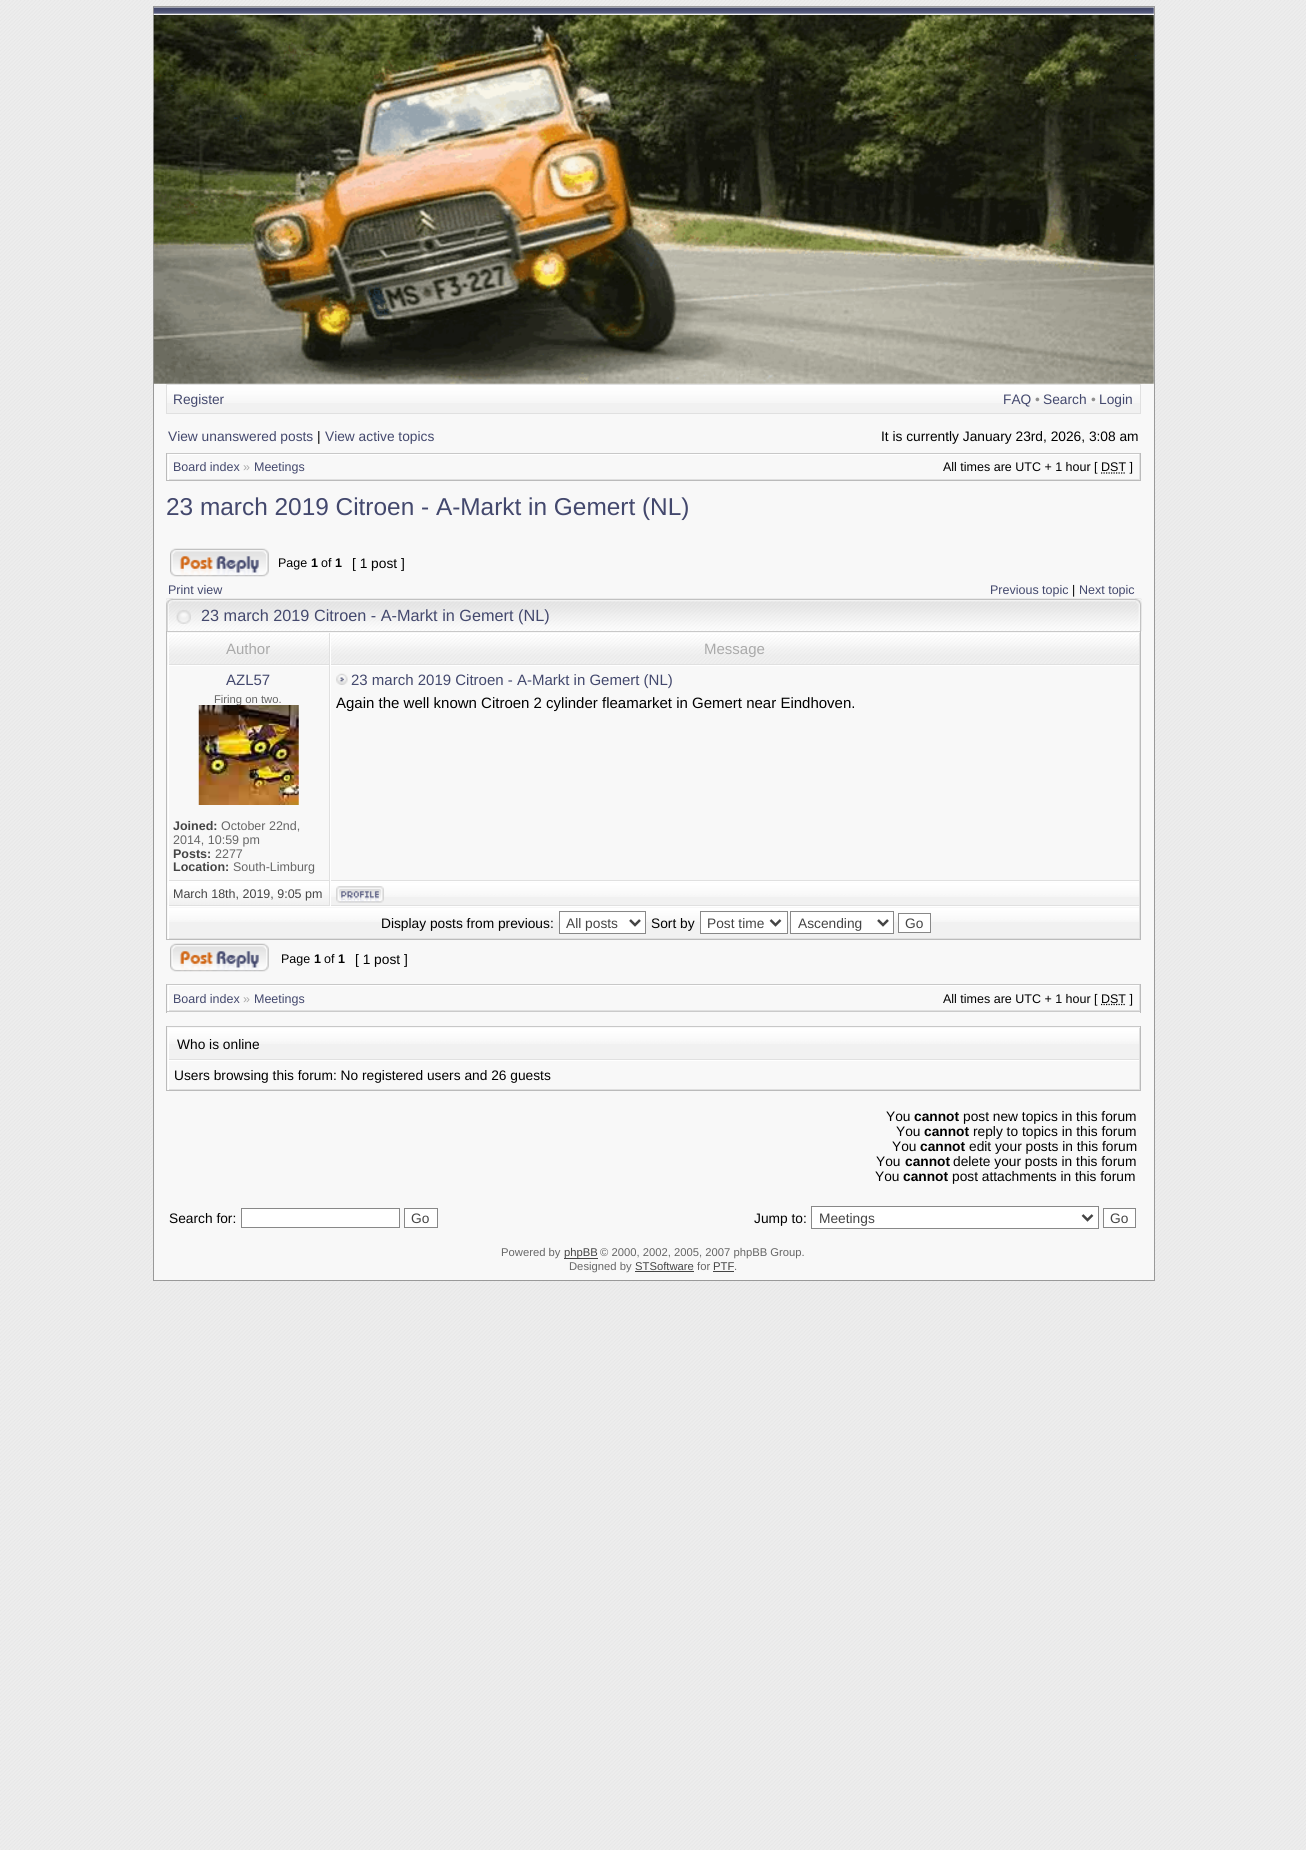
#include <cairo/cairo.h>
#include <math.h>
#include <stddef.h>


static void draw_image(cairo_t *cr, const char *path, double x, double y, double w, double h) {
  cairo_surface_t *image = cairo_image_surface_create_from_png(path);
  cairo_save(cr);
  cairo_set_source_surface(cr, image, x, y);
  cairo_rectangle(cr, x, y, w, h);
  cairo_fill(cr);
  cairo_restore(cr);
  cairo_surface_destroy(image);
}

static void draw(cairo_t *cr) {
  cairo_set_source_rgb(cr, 1, 1, 1);
  cairo_paint(cr);
  draw_image(cr, "images/1.png", 0, 0, 1306, 1850);
  cairo_set_source_rgb(cr, 248 / 255.0, 248 / 255.0, 248 / 255.0);
  cairo_rectangle(cr, 153.5, 6.5, 1001, 1274);
  cairo_fill_preserve(cr);
  cairo_set_source_rgb(cr, 153 / 255.0, 153 / 255.0, 153 / 255.0);
  cairo_set_line_width(cr, 1);
  cairo_stroke(cr);
  draw_image(cr, "images/2.png", 153, 7, 1001, 106);
  draw_image(cr, "images/3.png", 153, 15, 1001, 369);
  cairo_set_source_rgb(cr, 241 / 255.0, 241 / 255.0, 241 / 255.0);
  cairo_rectangle(cr, 167, 403, 973, 10);
  cairo_fill(cr);
  draw_image(cr, "images/4.png", 167, 385, 973, 18);
  cairo_rectangle(cr, 166.5, 384.5, 974, 29);
  cairo_set_source_rgb(cr, 224 / 255.0, 224 / 255.0, 224 / 255.0);
  cairo_stroke(cr);
  cairo_set_source_rgb(cr, 200 / 255.0, 200 / 255.0, 200 / 255.0);
  cairo_rectangle(cr, 166, 453, 975, 1);
  cairo_fill(cr);
  cairo_set_source_rgb(cr, 187 / 255.0, 187 / 255.0, 187 / 255.0);
  cairo_rectangle(cr, 1140, 453, 1, 28);
  cairo_fill(cr);
  cairo_rectangle(cr, 166, 480, 975, 1);
  cairo_fill(cr);
  cairo_rectangle(cr, 166, 453, 1, 28);
  cairo_fill(cr);
  cairo_set_source_rgb(cr, 1, 1, 1);
  cairo_rectangle(cr, 168, 454, 972, 1);
  cairo_fill(cr);
  cairo_set_source_rgb(cr, 224 / 255.0, 224 / 255.0, 224 / 255.0);
  cairo_rectangle(cr, 1139, 454, 1, 26);
  cairo_fill(cr);
  cairo_rectangle(cr, 168, 479, 972, 1);
  cairo_fill(cr);
  cairo_set_source_rgb(cr, 1, 1, 1);
  cairo_rectangle(cr, 168, 454, 1, 26);
  cairo_fill(cr);
  cairo_new_path(cr);
  cairo_move_to(cr, 1101, 473);
  cairo_line_to(cr, 1126, 473);
  cairo_set_source_rgb(cr, 0, 0, 0);
  cairo_set_line_width(cr, 1.2);
  cairo_set_dash(cr, (double[]){1.25, 1.25}, 2, 0);
  cairo_stroke(cr);
  draw_image(cr, "images/5.png", 170, 548, 99, 29);
  draw_image(cr, "images/6.png", 166, 598, 976, 33);
  draw_image(cr, "images/7.png", 166, 598, 25, 33);
  draw_image(cr, "images/8.png", 1135, 598, 7, 34);
  cairo_set_source_rgb(cr, 200 / 255.0, 200 / 255.0, 200 / 255.0);
  cairo_rectangle(cr, 166, 631, 975, 1);
  cairo_fill(cr);
  cairo_set_source_rgb(cr, 187 / 255.0, 187 / 255.0, 187 / 255.0);
  cairo_rectangle(cr, 1140, 631, 1, 309);
  cairo_fill(cr);
  cairo_rectangle(cr, 166, 939, 975, 1);
  cairo_fill(cr);
  cairo_rectangle(cr, 166, 631, 1, 309);
  cairo_fill(cr);
  cairo_set_source_rgb(cr, 1, 1, 1);
  cairo_rectangle(cr, 169, 633, 160, 1);
  cairo_fill(cr);
  draw_image(cr, "images/9.png", 167, 634, 162, 31);
  cairo_set_source_rgb(cr, 224 / 255.0, 224 / 255.0, 224 / 255.0);
  cairo_rectangle(cr, 329, 633, 1, 32);
  cairo_fill(cr);
  cairo_rectangle(cr, 168, 664, 162, 1);
  cairo_fill(cr);
  cairo_set_source_rgb(cr, 1, 1, 1);
  cairo_rectangle(cr, 168, 633, 1, 32);
  cairo_fill(cr);
  cairo_rectangle(cr, 331, 633, 808, 1);
  cairo_fill(cr);
  draw_image(cr, "images/10.png", 331, 634, 808, 30);
  cairo_set_source_rgb(cr, 224 / 255.0, 224 / 255.0, 224 / 255.0);
  cairo_rectangle(cr, 1139, 633, 1, 32);
  cairo_fill(cr);
  cairo_rectangle(cr, 330, 664, 810, 1);
  cairo_fill(cr);
  cairo_set_source_rgb(cr, 1, 1, 1);
  cairo_rectangle(cr, 330, 633, 1, 32);
  cairo_fill(cr);
  cairo_rectangle(cr, 168, 665, 972, 1);
  cairo_fill(cr);
  cairo_set_source_rgb(cr, 224 / 255.0, 224 / 255.0, 224 / 255.0);
  cairo_rectangle(cr, 329, 665, 1, 216);
  cairo_fill(cr);
  cairo_rectangle(cr, 168, 880, 162, 1);
  cairo_fill(cr);
  cairo_set_source_rgb(cr, 1, 1, 1);
  cairo_rectangle(cr, 168, 665, 1, 216);
  cairo_fill(cr);
  cairo_set_source_rgb(cr, 224 / 255.0, 224 / 255.0, 224 / 255.0);
  cairo_rectangle(cr, 1139, 665, 1, 216);
  cairo_fill(cr);
  cairo_rectangle(cr, 330, 880, 810, 1);
  cairo_fill(cr);
  cairo_set_source_rgb(cr, 1, 1, 1);
  cairo_rectangle(cr, 330, 665, 1, 216);
  cairo_fill(cr);
  draw_image(cr, "images/12.png", 336, 673, 12, 12);
  draw_image(cr, "images/13.png", 167, 881, 162, 24);
  cairo_rectangle(cr, 168, 881, 972, 1);
  cairo_fill(cr);
  cairo_set_source_rgb(cr, 224 / 255.0, 224 / 255.0, 224 / 255.0);
  cairo_rectangle(cr, 329, 881, 1, 25);
  cairo_fill(cr);
  cairo_rectangle(cr, 168, 905, 162, 1);
  cairo_fill(cr);
  cairo_set_source_rgb(cr, 1, 1, 1);
  cairo_rectangle(cr, 168, 881, 1, 25);
  cairo_fill(cr);
  cairo_set_source_rgb(cr, 241 / 255.0, 241 / 255.0, 241 / 255.0);
  cairo_rectangle(cr, 331, 897, 808, 8);
  cairo_fill(cr);
  draw_image(cr, "images/14.png", 331, 882, 808, 15);
  cairo_set_source_rgb(cr, 224 / 255.0, 224 / 255.0, 224 / 255.0);
  cairo_rectangle(cr, 1139, 881, 1, 25);
  cairo_fill(cr);
  cairo_rectangle(cr, 330, 905, 810, 1);
  cairo_fill(cr);
  cairo_set_source_rgb(cr, 1, 1, 1);
  cairo_rectangle(cr, 330, 881, 1, 25);
  cairo_fill(cr);
  draw_image(cr, "images/15.png", 336, 886, 48, 17);
  cairo_set_source_rgb(cr, 241 / 255.0, 241 / 255.0, 241 / 255.0);
  cairo_rectangle(cr, 169, 907, 970, 31);
  cairo_fill(cr);
  draw_image(cr, "images/16.png", 169, 907, 970, 15);
  cairo_set_source_rgb(cr, 1, 1, 1);
  cairo_rectangle(cr, 168, 906, 972, 1);
  cairo_fill(cr);
  cairo_set_source_rgb(cr, 224 / 255.0, 224 / 255.0, 224 / 255.0);
  cairo_rectangle(cr, 1139, 906, 1, 33);
  cairo_fill(cr);
  cairo_rectangle(cr, 168, 938, 972, 1);
  cairo_fill(cr);
  cairo_set_source_rgb(cr, 1, 1, 1);
  cairo_rectangle(cr, 168, 906, 1, 33);
  cairo_fill(cr);
  cairo_rectangle(cr, 560, 913, 85, 20);
  cairo_fill(cr);
  cairo_rectangle(cr, 559.5, 911.5, 86, 22);
  cairo_set_source_rgb(cr, 136 / 255.0, 136 / 255.0, 136 / 255.0);
  cairo_set_line_width(cr, 1);
  cairo_set_dash(cr, NULL, 0, 0);
  cairo_stroke(cr);
  cairo_new_path(cr);
  cairo_move_to(cr, 630, 920);
  cairo_line_to(cr, 635, 925);
  cairo_line_to(cr, 640, 920);
  cairo_set_source_rgb(cr, 68 / 255.0, 68 / 255.0, 68 / 255.0);
  cairo_set_line_width(cr, 2.5);
  cairo_stroke(cr);
  cairo_set_source_rgb(cr, 1, 1, 1);
  cairo_rectangle(cr, 701, 913, 86, 20);
  cairo_fill(cr);
  cairo_rectangle(cr, 700.5, 911.5, 87, 22);
  cairo_set_source_rgb(cr, 136 / 255.0, 136 / 255.0, 136 / 255.0);
  cairo_set_line_width(cr, 1);
  cairo_stroke(cr);
  cairo_new_path(cr);
  cairo_move_to(cr, 770.5, 920);
  cairo_line_to(cr, 775.5, 925);
  cairo_line_to(cr, 780.5, 920);
  cairo_set_source_rgb(cr, 68 / 255.0, 68 / 255.0, 68 / 255.0);
  cairo_set_line_width(cr, 2.5);
  cairo_stroke(cr);
  cairo_set_source_rgb(cr, 1, 1, 1);
  cairo_rectangle(cr, 791, 913, 102, 20);
  cairo_fill(cr);
  cairo_rectangle(cr, 790.5, 911.5, 103, 22);
  cairo_set_source_rgb(cr, 136 / 255.0, 136 / 255.0, 136 / 255.0);
  cairo_set_line_width(cr, 1);
  cairo_stroke(cr);
  cairo_new_path(cr);
  cairo_move_to(cr, 878, 920);
  cairo_line_to(cr, 883, 925);
  cairo_line_to(cr, 888, 920);
  cairo_set_source_rgb(cr, 68 / 255.0, 68 / 255.0, 68 / 255.0);
  cairo_set_line_width(cr, 2.5);
  cairo_stroke(cr);
  cairo_set_source_rgb(cr, 1, 1, 1);
  cairo_rectangle(cr, 898.5, 913.5, 32, 19);
  cairo_fill_preserve(cr);
  cairo_set_source_rgb(cr, 136 / 255.0, 136 / 255.0, 136 / 255.0);
  cairo_set_line_width(cr, 1);
  cairo_stroke(cr);
  draw_image(cr, "images/5.png", 170, 943, 99, 29);
  cairo_set_source_rgb(cr, 200 / 255.0, 200 / 255.0, 200 / 255.0);
  cairo_rectangle(cr, 166, 984, 975, 1);
  cairo_fill(cr);
  cairo_set_source_rgb(cr, 187 / 255.0, 187 / 255.0, 187 / 255.0);
  cairo_rectangle(cr, 1140, 984, 1, 29);
  cairo_fill(cr);
  cairo_rectangle(cr, 166, 1011, 975, 1);
  cairo_fill(cr);
  cairo_rectangle(cr, 166, 984, 1, 29);
  cairo_fill(cr);
  draw_image(cr, "images/17.png", 167, 1011, 973, 1);
  cairo_set_source_rgb(cr, 1, 1, 1);
  cairo_rectangle(cr, 168, 985, 972, 1);
  cairo_fill(cr);
  cairo_set_source_rgb(cr, 224 / 255.0, 224 / 255.0, 224 / 255.0);
  cairo_rectangle(cr, 1139, 985, 1, 26);
  cairo_fill(cr);
  cairo_rectangle(cr, 168, 1010, 972, 1);
  cairo_fill(cr);
  cairo_set_source_rgb(cr, 1, 1, 1);
  cairo_rectangle(cr, 168, 985, 1, 26);
  cairo_fill(cr);
  cairo_new_path(cr);
  cairo_move_to(cr, 1101, 1004.5);
  cairo_line_to(cr, 1126, 1004.5);
  cairo_set_source_rgb(cr, 0, 0, 0);
  cairo_set_line_width(cr, 1.2);
  cairo_set_dash(cr, (double[]){1.25, 1.25}, 2, 0);
  cairo_stroke(cr);
  cairo_set_source_rgb(cr, 200 / 255.0, 200 / 255.0, 200 / 255.0);
  cairo_rectangle(cr, 166, 1026, 975, 1);
  cairo_fill(cr);
  cairo_set_source_rgb(cr, 187 / 255.0, 187 / 255.0, 187 / 255.0);
  cairo_rectangle(cr, 1140, 1026, 1, 65);
  cairo_fill(cr);
  cairo_rectangle(cr, 166, 1090, 975, 1);
  cairo_fill(cr);
  cairo_rectangle(cr, 166, 1026, 1, 65);
  cairo_fill(cr);
  cairo_set_source_rgb(cr, 241 / 255.0, 241 / 255.0, 241 / 255.0);
  cairo_rectangle(cr, 169, 1044, 970, 15);
  cairo_fill(cr);
  draw_image(cr, "images/18.png", 169, 1029, 970, 15);
  cairo_set_source_rgb(cr, 1, 1, 1);
  cairo_rectangle(cr, 168, 1028, 972, 1);
  cairo_fill(cr);
  cairo_set_source_rgb(cr, 224 / 255.0, 224 / 255.0, 224 / 255.0);
  cairo_rectangle(cr, 1139, 1028, 1, 32);
  cairo_fill(cr);
  cairo_rectangle(cr, 168, 1059, 972, 1);
  cairo_fill(cr);
  cairo_set_source_rgb(cr, 1, 1, 1);
  cairo_rectangle(cr, 168, 1028, 1, 32);
  cairo_fill(cr);
  cairo_rectangle(cr, 168, 1060, 972, 1);
  cairo_fill(cr);
  cairo_set_source_rgb(cr, 224 / 255.0, 224 / 255.0, 224 / 255.0);
  cairo_rectangle(cr, 1139, 1060, 1, 30);
  cairo_fill(cr);
  cairo_rectangle(cr, 168, 1089, 972, 1);
  cairo_fill(cr);
  cairo_set_source_rgb(cr, 1, 1, 1);
  cairo_rectangle(cr, 168, 1060, 1, 30);
  cairo_fill(cr);
  cairo_rectangle(cr, 241.5, 1208.5, 158, 19);
  cairo_fill_preserve(cr);
  cairo_set_source_rgb(cr, 136 / 255.0, 136 / 255.0, 136 / 255.0);
  cairo_set_line_width(cr, 1);
  cairo_set_dash(cr, NULL, 0, 0);
  cairo_stroke(cr);
  cairo_set_source_rgb(cr, 1, 1, 1);
  cairo_rectangle(cr, 404.5, 1208.5, 33, 19);
  cairo_fill_preserve(cr);
  cairo_set_source_rgb(cr, 136 / 255.0, 136 / 255.0, 136 / 255.0);
  cairo_stroke(cr);
  cairo_set_source_rgb(cr, 1, 1, 1);
  cairo_rectangle(cr, 811.5, 1206.5, 287, 22);
  cairo_fill_preserve(cr);
  cairo_set_source_rgb(cr, 136 / 255.0, 136 / 255.0, 136 / 255.0);
  cairo_stroke(cr);
  cairo_new_path(cr);
  cairo_move_to(cr, 1082.5, 1215);
  cairo_line_to(cr, 1087.5, 1220);
  cairo_line_to(cr, 1092.5, 1215);
  cairo_set_source_rgb(cr, 68 / 255.0, 68 / 255.0, 68 / 255.0);
  cairo_set_line_width(cr, 2.5);
  cairo_stroke(cr);
  cairo_set_source_rgb(cr, 1, 1, 1);
  cairo_rectangle(cr, 1103.5, 1208.5, 32, 19);
  cairo_fill_preserve(cr);
  cairo_set_source_rgb(cr, 136 / 255.0, 136 / 255.0, 136 / 255.0);
  cairo_set_line_width(cr, 1);
  cairo_stroke(cr);
  cairo_set_source_rgb(cr, 68 / 255.0, 68 / 255.0, 68 / 255.0);
  cairo_rectangle(cr, 564, 1258, 34, 1);
  cairo_fill(cr);
  cairo_rectangle(cr, 635, 1271, 59, 1);
  cairo_fill(cr);
  cairo_rectangle(cr, 713, 1271, 21, 1);
  cairo_fill(cr);
  cairo_select_font_face(cr, "Liberation Sans", CAIRO_FONT_SLANT_NORMAL, CAIRO_FONT_WEIGHT_NORMAL);
  cairo_set_font_size(cr, 13.75);
  cairo_set_source_rgb(cr, 67 / 255.0, 72 / 255.0, 109 / 255.0);
  cairo_move_to(cr, 173, 404);
  cairo_show_text(cr, "Register");
  cairo_move_to(cr, 1003, 404);
  cairo_show_text(cr, "FAQ");
  cairo_set_source_rgb(cr, 144 / 255.0, 144 / 255.0, 144 / 255.0);
  cairo_move_to(cr, 1035, 404);
  cairo_show_text(cr, "•");
  cairo_set_source_rgb(cr, 67 / 255.0, 72 / 255.0, 109 / 255.0);
  cairo_move_to(cr, 1043, 404);
  cairo_show_text(cr, "Search");
  cairo_set_source_rgb(cr, 144 / 255.0, 144 / 255.0, 144 / 255.0);
  cairo_move_to(cr, 1091, 404);
  cairo_show_text(cr, "•");
  cairo_set_source_rgb(cr, 67 / 255.0, 72 / 255.0, 109 / 255.0);
  cairo_move_to(cr, 1099, 404);
  cairo_show_text(cr, "Login");
  cairo_move_to(cr, 168, 441);
  cairo_show_text(cr, "View unanswered posts");
  cairo_set_source_rgb(cr, 0, 0, 0);
  cairo_move_to(cr, 317, 441);
  cairo_show_text(cr, "|");
  cairo_set_source_rgb(cr, 67 / 255.0, 72 / 255.0, 109 / 255.0);
  cairo_move_to(cr, 325, 441);
  cairo_show_text(cr, "View active topics");
  cairo_set_source_rgb(cr, 0, 0, 0);
  cairo_move_to(cr, 881, 441);
  cairo_show_text(cr, "It is currently January 23rd, 2026, 3:08 am");
  cairo_set_font_size(cr, 12.5);
  cairo_set_source_rgb(cr, 67 / 255.0, 72 / 255.0, 109 / 255.0);
  cairo_move_to(cr, 173, 471);
  cairo_show_text(cr, "Board index");
  cairo_set_source_rgb(cr, 170 / 255.0, 170 / 255.0, 170 / 255.0);
  cairo_move_to(cr, 243, 471);
  cairo_show_text(cr, "»");
  cairo_set_source_rgb(cr, 67 / 255.0, 72 / 255.0, 109 / 255.0);
  cairo_move_to(cr, 254, 471);
  cairo_show_text(cr, "Meetings");
  cairo_set_source_rgb(cr, 0, 0, 0);
  cairo_move_to(cr, 943, 471);
  cairo_show_text(cr, "All times are UTC + 1 hour [ DST ]");
  cairo_set_font_size(cr, 24.4);
  cairo_set_source_rgb(cr, 67 / 255.0, 72 / 255.0, 109 / 255.0);
  cairo_move_to(cr, 166, 515);
  cairo_show_text(cr, "23 march 2019 Citroen - A-Markt in Gemert (NL)");
  cairo_set_font_size(cr, 12.5);
  cairo_set_source_rgb(cr, 0, 0, 0);
  cairo_move_to(cr, 278, 567);
  cairo_show_text(cr, "Page");
  cairo_select_font_face(cr, "Liberation Sans", CAIRO_FONT_SLANT_NORMAL, CAIRO_FONT_WEIGHT_BOLD);
  cairo_move_to(cr, 311, 567);
  cairo_show_text(cr, "1");
  cairo_select_font_face(cr, "Liberation Sans", CAIRO_FONT_SLANT_NORMAL, CAIRO_FONT_WEIGHT_NORMAL);
  cairo_move_to(cr, 321, 567);
  cairo_show_text(cr, "of");
  cairo_select_font_face(cr, "Liberation Sans", CAIRO_FONT_SLANT_NORMAL, CAIRO_FONT_WEIGHT_BOLD);
  cairo_move_to(cr, 335, 567);
  cairo_show_text(cr, "1");
  cairo_select_font_face(cr, "Liberation Sans", CAIRO_FONT_SLANT_NORMAL, CAIRO_FONT_WEIGHT_NORMAL);
  cairo_set_font_size(cr, 13.75);
  cairo_move_to(cr, 352, 568);
  cairo_show_text(cr, "[ 1 post ]");
  cairo_set_font_size(cr, 12.5);
  cairo_set_source_rgb(cr, 67 / 255.0, 72 / 255.0, 109 / 255.0);
  cairo_move_to(cr, 168, 594);
  cairo_show_text(cr, "Print view");
  cairo_move_to(cr, 990, 594);
  cairo_show_text(cr, "Previous topic");
  cairo_set_source_rgb(cr, 0, 0, 0);
  cairo_move_to(cr, 1072, 594);
  cairo_show_text(cr, "|");
  cairo_set_source_rgb(cr, 67 / 255.0, 72 / 255.0, 109 / 255.0);
  cairo_move_to(cr, 1079, 594);
  cairo_show_text(cr, "Next topic");
  cairo_set_font_size(cr, 16.25);
  cairo_move_to(cr, 201, 621);
  cairo_show_text(cr, "23 march 2019 Citroen - A-Markt in Gemert (NL)");
  cairo_set_font_size(cr, 15);
  cairo_set_source_rgb(cr, 170 / 255.0, 170 / 255.0, 170 / 255.0);
  cairo_move_to(cr, 226, 654);
  cairo_show_text(cr, "Author");
  cairo_move_to(cr, 704, 654);
  cairo_show_text(cr, "Message");
  cairo_set_source_rgb(cr, 67 / 255.0, 72 / 255.0, 109 / 255.0);
  cairo_move_to(cr, 226, 685);
  cairo_show_text(cr, "AZL57");
  cairo_set_font_size(cr, 11.25);
  cairo_set_source_rgb(cr, 102 / 255.0, 102 / 255.0, 102 / 255.0);
  cairo_move_to(cr, 214, 703);
  cairo_show_text(cr, "Firing on two.");
  draw_image(cr, "images/11.png", 198, 705, 101, 100);
  cairo_select_font_face(cr, "Liberation Sans", CAIRO_FONT_SLANT_NORMAL, CAIRO_FONT_WEIGHT_BOLD);
  cairo_set_font_size(cr, 12.5);
  cairo_set_source_rgb(cr, 68 / 255.0, 68 / 255.0, 68 / 255.0);
  cairo_move_to(cr, 173, 830);
  cairo_show_text(cr, "Joined:");
  cairo_select_font_face(cr, "Liberation Sans", CAIRO_FONT_SLANT_NORMAL, CAIRO_FONT_WEIGHT_NORMAL);
  cairo_set_source_rgb(cr, 102 / 255.0, 102 / 255.0, 102 / 255.0);
  cairo_move_to(cr, 221, 830);
  cairo_show_text(cr, "October 22nd,");
  cairo_move_to(cr, 173, 844);
  cairo_show_text(cr, "2014, 10:59 pm");
  cairo_select_font_face(cr, "Liberation Sans", CAIRO_FONT_SLANT_NORMAL, CAIRO_FONT_WEIGHT_BOLD);
  cairo_set_source_rgb(cr, 68 / 255.0, 68 / 255.0, 68 / 255.0);
  cairo_move_to(cr, 173, 858);
  cairo_show_text(cr, "Posts:");
  cairo_select_font_face(cr, "Liberation Sans", CAIRO_FONT_SLANT_NORMAL, CAIRO_FONT_WEIGHT_NORMAL);
  cairo_set_source_rgb(cr, 102 / 255.0, 102 / 255.0, 102 / 255.0);
  cairo_move_to(cr, 215, 858);
  cairo_show_text(cr, "2277");
  cairo_select_font_face(cr, "Liberation Sans", CAIRO_FONT_SLANT_NORMAL, CAIRO_FONT_WEIGHT_BOLD);
  cairo_set_source_rgb(cr, 68 / 255.0, 68 / 255.0, 68 / 255.0);
  cairo_move_to(cr, 173, 871);
  cairo_show_text(cr, "Location:");
  cairo_select_font_face(cr, "Liberation Sans", CAIRO_FONT_SLANT_NORMAL, CAIRO_FONT_WEIGHT_NORMAL);
  cairo_set_source_rgb(cr, 102 / 255.0, 102 / 255.0, 102 / 255.0);
  cairo_move_to(cr, 233, 871);
  cairo_show_text(cr, "South-Limburg");
  cairo_set_font_size(cr, 15);
  cairo_set_source_rgb(cr, 67 / 255.0, 72 / 255.0, 109 / 255.0);
  cairo_move_to(cr, 351, 685);
  cairo_show_text(cr, "23 march 2019 Citroen - A-Markt in Gemert (NL)");
  cairo_set_source_rgb(cr, 0, 0, 0);
  cairo_move_to(cr, 336, 708);
  cairo_show_text(cr, "Again the well known Citroen 2 cylinder fleamarket in Gemert near Eindhoven.");
  cairo_set_font_size(cr, 12.5);
  cairo_set_source_rgb(cr, 68 / 255.0, 68 / 255.0, 68 / 255.0);
  cairo_move_to(cr, 173, 898);
  cairo_show_text(cr, "March 18th, 2019, 9:05 pm");
  cairo_set_font_size(cr, 13.75);
  cairo_set_source_rgb(cr, 0, 0, 0);
  cairo_move_to(cr, 381, 928);
  cairo_show_text(cr, "Display posts from previous:");
  cairo_set_source_rgb(cr, 68 / 255.0, 68 / 255.0, 68 / 255.0);
  cairo_move_to(cr, 566, 928);
  cairo_show_text(cr, "All posts");
  cairo_set_source_rgb(cr, 0, 0, 0);
  cairo_move_to(cr, 651, 928);
  cairo_show_text(cr, "Sort by");
  cairo_set_source_rgb(cr, 68 / 255.0, 68 / 255.0, 68 / 255.0);
  cairo_move_to(cr, 707, 928);
  cairo_show_text(cr, "Post time");
  cairo_move_to(cr, 798, 928);
  cairo_show_text(cr, "Ascending");
  cairo_move_to(cr, 905, 928);
  cairo_show_text(cr, "Go");
  cairo_set_font_size(cr, 12.5);
  cairo_set_source_rgb(cr, 0, 0, 0);
  cairo_move_to(cr, 281, 963);
  cairo_show_text(cr, "Page");
  cairo_select_font_face(cr, "Liberation Sans", CAIRO_FONT_SLANT_NORMAL, CAIRO_FONT_WEIGHT_BOLD);
  cairo_move_to(cr, 314, 963);
  cairo_show_text(cr, "1");
  cairo_select_font_face(cr, "Liberation Sans", CAIRO_FONT_SLANT_NORMAL, CAIRO_FONT_WEIGHT_NORMAL);
  cairo_move_to(cr, 324, 963);
  cairo_show_text(cr, "of");
  cairo_select_font_face(cr, "Liberation Sans", CAIRO_FONT_SLANT_NORMAL, CAIRO_FONT_WEIGHT_BOLD);
  cairo_move_to(cr, 338, 963);
  cairo_show_text(cr, "1");
  cairo_select_font_face(cr, "Liberation Sans", CAIRO_FONT_SLANT_NORMAL, CAIRO_FONT_WEIGHT_NORMAL);
  cairo_set_font_size(cr, 13.75);
  cairo_move_to(cr, 355, 964);
  cairo_show_text(cr, "[ 1 post ]");
  cairo_set_font_size(cr, 12.5);
  cairo_set_source_rgb(cr, 67 / 255.0, 72 / 255.0, 109 / 255.0);
  cairo_move_to(cr, 173, 1003);
  cairo_show_text(cr, "Board index");
  cairo_set_source_rgb(cr, 170 / 255.0, 170 / 255.0, 170 / 255.0);
  cairo_move_to(cr, 243, 1003);
  cairo_show_text(cr, "»");
  cairo_set_source_rgb(cr, 67 / 255.0, 72 / 255.0, 109 / 255.0);
  cairo_move_to(cr, 254, 1003);
  cairo_show_text(cr, "Meetings");
  cairo_set_source_rgb(cr, 0, 0, 0);
  cairo_move_to(cr, 943, 1003);
  cairo_show_text(cr, "All times are UTC + 1 hour [");
  cairo_move_to(cr, 1101, 1003);
  cairo_show_text(cr, "DST ]");
  cairo_set_font_size(cr, 13.75);
  cairo_move_to(cr, 177, 1049);
  cairo_show_text(cr, "Who is online");
  cairo_move_to(cr, 174, 1080);
  cairo_show_text(cr, "Users browsing this forum: No registered users and 26 guests");
  cairo_move_to(cr, 886, 1121);
  cairo_show_text(cr, "You");
  cairo_select_font_face(cr, "Liberation Sans", CAIRO_FONT_SLANT_NORMAL, CAIRO_FONT_WEIGHT_BOLD);
  cairo_move_to(cr, 914, 1121);
  cairo_show_text(cr, "cannot");
  cairo_select_font_face(cr, "Liberation Sans", CAIRO_FONT_SLANT_NORMAL, CAIRO_FONT_WEIGHT_NORMAL);
  cairo_move_to(cr, 963, 1121);
  cairo_show_text(cr, "post new topics in this forum");
  cairo_move_to(cr, 896, 1136);
  cairo_show_text(cr, "You");
  cairo_select_font_face(cr, "Liberation Sans", CAIRO_FONT_SLANT_NORMAL, CAIRO_FONT_WEIGHT_BOLD);
  cairo_move_to(cr, 924, 1136);
  cairo_show_text(cr, "cannot");
  cairo_select_font_face(cr, "Liberation Sans", CAIRO_FONT_SLANT_NORMAL, CAIRO_FONT_WEIGHT_NORMAL);
  cairo_move_to(cr, 973, 1136);
  cairo_show_text(cr, "reply to topics in this forum");
  cairo_move_to(cr, 892, 1151);
  cairo_show_text(cr, "You");
  cairo_select_font_face(cr, "Liberation Sans", CAIRO_FONT_SLANT_NORMAL, CAIRO_FONT_WEIGHT_BOLD);
  cairo_move_to(cr, 920, 1151);
  cairo_show_text(cr, "cannot");
  cairo_select_font_face(cr, "Liberation Sans", CAIRO_FONT_SLANT_NORMAL, CAIRO_FONT_WEIGHT_NORMAL);
  cairo_move_to(cr, 969, 1151);
  cairo_show_text(cr, "edit your posts in this forum");
  cairo_move_to(cr, 876, 1166);
  cairo_show_text(cr, "You");
  cairo_select_font_face(cr, "Liberation Sans", CAIRO_FONT_SLANT_NORMAL, CAIRO_FONT_WEIGHT_BOLD);
  cairo_move_to(cr, 905, 1166);
  cairo_show_text(cr, "cannot");
  cairo_select_font_face(cr, "Liberation Sans", CAIRO_FONT_SLANT_NORMAL, CAIRO_FONT_WEIGHT_NORMAL);
  cairo_move_to(cr, 953, 1166);
  cairo_show_text(cr, "delete your posts in this forum");
  cairo_move_to(cr, 875, 1181);
  cairo_show_text(cr, "You");
  cairo_select_font_face(cr, "Liberation Sans", CAIRO_FONT_SLANT_NORMAL, CAIRO_FONT_WEIGHT_BOLD);
  cairo_move_to(cr, 903, 1181);
  cairo_show_text(cr, "cannot");
  cairo_select_font_face(cr, "Liberation Sans", CAIRO_FONT_SLANT_NORMAL, CAIRO_FONT_WEIGHT_NORMAL);
  cairo_move_to(cr, 952, 1181);
  cairo_show_text(cr, "post attachments in this forum");
  cairo_move_to(cr, 169, 1223);
  cairo_show_text(cr, "Search for:");
  cairo_set_source_rgb(cr, 68 / 255.0, 68 / 255.0, 68 / 255.0);
  cairo_move_to(cr, 411, 1223);
  cairo_show_text(cr, "Go");
  cairo_set_source_rgb(cr, 0, 0, 0);
  cairo_move_to(cr, 754, 1223);
  cairo_show_text(cr, "Jump to:");
  cairo_set_source_rgb(cr, 68 / 255.0, 68 / 255.0, 68 / 255.0);
  cairo_move_to(cr, 819, 1223);
  cairo_show_text(cr, "Meetings");
  cairo_move_to(cr, 1110, 1223);
  cairo_show_text(cr, "Go");
  cairo_set_font_size(cr, 11.25);
  cairo_set_source_rgb(cr, 102 / 255.0, 102 / 255.0, 102 / 255.0);
  cairo_move_to(cr, 501, 1256);
  cairo_show_text(cr, "Powered by");
  cairo_set_source_rgb(cr, 68 / 255.0, 68 / 255.0, 68 / 255.0);
  cairo_move_to(cr, 564, 1256);
  cairo_show_text(cr, "phpBB");
  cairo_set_source_rgb(cr, 102 / 255.0, 102 / 255.0, 102 / 255.0);
  cairo_move_to(cr, 600, 1256);
  cairo_show_text(cr, "© 2000, 2002, 2005, 2007 phpBB Group.");
  cairo_move_to(cr, 569, 1270);
  cairo_show_text(cr, "Designed by");
  cairo_set_source_rgb(cr, 68 / 255.0, 68 / 255.0, 68 / 255.0);
  cairo_move_to(cr, 635, 1270);
  cairo_show_text(cr, "STSoftware");
  cairo_set_source_rgb(cr, 102 / 255.0, 102 / 255.0, 102 / 255.0);
  cairo_move_to(cr, 697, 1270);
  cairo_show_text(cr, "for");
  cairo_set_source_rgb(cr, 68 / 255.0, 68 / 255.0, 68 / 255.0);
  cairo_move_to(cr, 713, 1270);
  cairo_show_text(cr, "PTF");
  cairo_set_source_rgb(cr, 102 / 255.0, 102 / 255.0, 102 / 255.0);
  cairo_move_to(cr, 734, 1270);
  cairo_show_text(cr, ".");
}

int main(void) {
  cairo_surface_t *surface = cairo_image_surface_create(CAIRO_FORMAT_RGB24, 1306, 1850);
  cairo_t *cr = cairo_create(surface);
  cairo_font_options_t *options = cairo_font_options_create();
  cairo_font_options_set_hint_metrics(options, CAIRO_HINT_METRICS_OFF);
  cairo_font_options_set_hint_style(options, CAIRO_HINT_STYLE_NONE);
  cairo_set_font_options(cr, options);
  cairo_set_miter_limit(cr, 4);
  draw(cr);
  cairo_surface_write_to_png(surface, "out.png");
  cairo_font_options_destroy(options);
  cairo_destroy(cr);
  cairo_surface_destroy(surface);
  return 0;
}
